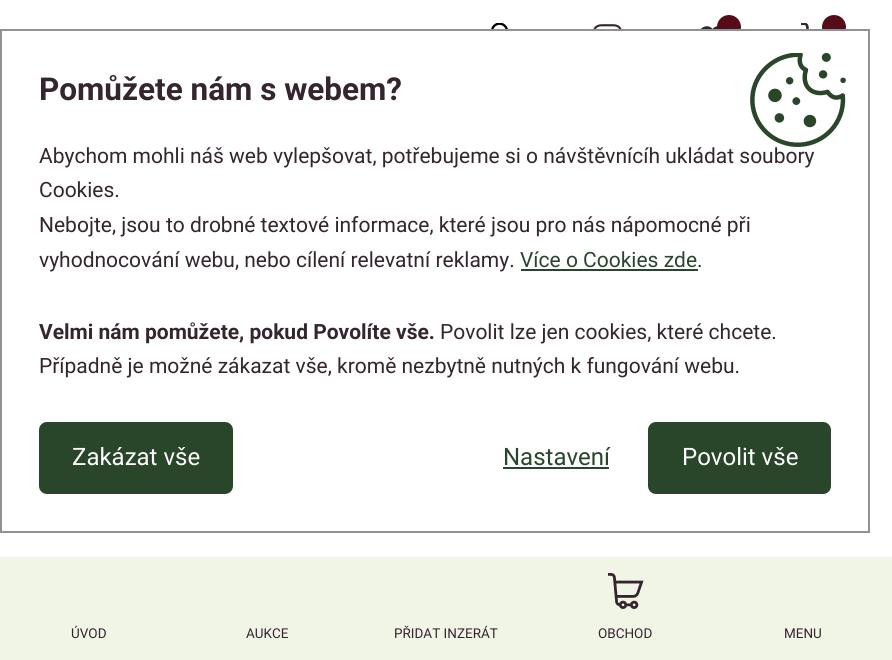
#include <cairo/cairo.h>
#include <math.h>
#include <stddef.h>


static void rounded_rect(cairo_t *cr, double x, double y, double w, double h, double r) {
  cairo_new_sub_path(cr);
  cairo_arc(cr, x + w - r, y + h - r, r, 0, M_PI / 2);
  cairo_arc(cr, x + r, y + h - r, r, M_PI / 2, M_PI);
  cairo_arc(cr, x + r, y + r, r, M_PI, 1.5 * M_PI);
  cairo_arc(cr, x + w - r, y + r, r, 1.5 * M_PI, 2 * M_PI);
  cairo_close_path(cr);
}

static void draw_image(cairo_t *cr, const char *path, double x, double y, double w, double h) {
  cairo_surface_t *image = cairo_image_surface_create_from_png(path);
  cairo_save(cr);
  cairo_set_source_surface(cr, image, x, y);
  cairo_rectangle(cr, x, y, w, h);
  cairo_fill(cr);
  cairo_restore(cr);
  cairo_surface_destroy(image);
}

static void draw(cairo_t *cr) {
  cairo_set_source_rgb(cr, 1, 1, 1);
  cairo_paint(cr);
  cairo_new_path(cr);
  cairo_move_to(cr, 725, 35);
  cairo_curve_to(cr, 725, 40, 720, 44.5, 717, 47.5);
  cairo_curve_to(cr, 713.5, 51, 713.5, 52.5, 710, 49.5);
  cairo_curve_to(cr, 686.5, 29.5, 712.5, 21, 712.5, 33.5);
  cairo_curve_to(cr, 712.5, 25.5, 725, 25, 725, 35);
  cairo_close_path(cr);
  cairo_set_source_rgb(cr, 52 / 255.0, 37 / 255.0, 47 / 255.0);
  cairo_set_line_width(cr, 2.8);
  cairo_set_line_cap(cr, CAIRO_LINE_CAP_ROUND);
  cairo_set_line_join(cr, CAIRO_LINE_JOIN_ROUND);
  cairo_stroke(cr);
  cairo_set_source_rgb(cr, 85 / 255.0, 12 / 255.0, 24 / 255.0);
  cairo_arc(cr, 729, 27, 12, 0, 2 * M_PI);
  cairo_fill(cr);
  cairo_arc(cr, 834, 27, 12, 0, 2 * M_PI);
  cairo_fill(cr);
  cairo_set_source_rgb(cr, 1, 1, 1);
  cairo_rectangle(cr, 698, 31, 148, 22);
  cairo_fill(cr);
  draw_image(cr, "images/1.png", 750, 53, 96, 94);
  cairo_rectangle(cr, 1, 30, 868, 502);
  cairo_set_source_rgb(cr, 145 / 255.0, 145 / 255.0, 145 / 255.0);
  cairo_set_line_width(cr, 2);
  cairo_set_line_cap(cr, CAIRO_LINE_CAP_BUTT);
  cairo_set_line_join(cr, CAIRO_LINE_JOIN_MITER);
  cairo_stroke(cr);
  cairo_set_source_rgb(cr, 41 / 255.0, 70 / 255.0, 42 / 255.0);
  cairo_rectangle(cr, 521, 269, 177, 2);
  cairo_fill(cr);
  rounded_rect(cr, 39, 422, 194, 72, 8);
  cairo_fill(cr);
  cairo_rectangle(cr, 503, 467, 106, 2);
  cairo_fill(cr);
  rounded_rect(cr, 648, 422, 183, 72, 8);
  cairo_fill(cr);
  draw_image(cr, "images/2.png", 491, 23, 17, 6);
  draw_image(cr, "images/3.png", 593, 24, 29, 5);
  draw_image(cr, "images/4.png", 801, 23, 8, 6);
  cairo_set_source_rgb(cr, 241 / 255.0, 245 / 255.0, 230 / 255.0);
  cairo_rectangle(cr, 0, 559, 892, 101);
  cairo_fill(cr);
  cairo_set_source_rgb(cr, 242 / 255.0, 246 / 255.0, 233 / 255.0);
  cairo_rectangle(cr, 0, 557, 892, 2);
  cairo_fill(cr);
  draw_image(cr, "images/5.png", 608, 573, 36, 36);
  cairo_select_font_face(cr, "Roboto", CAIRO_FONT_SLANT_NORMAL, CAIRO_FONT_WEIGHT_BOLD);
  cairo_set_font_size(cr, 31.5);
  cairo_set_source_rgb(cr, 52 / 255.0, 37 / 255.0, 47 / 255.0);
  cairo_move_to(cr, 39, 100);
  cairo_show_text(cr, "Pomůžete nám s webem?");
  cairo_select_font_face(cr, "Roboto", CAIRO_FONT_SLANT_NORMAL, CAIRO_FONT_WEIGHT_NORMAL);
  cairo_set_font_size(cr, 21);
  cairo_move_to(cr, 39, 163);
  cairo_show_text(cr, "Abychom mohli náš web vylepšovat, potřebujeme si o návštěvnícíh ukládat soubory");
  cairo_move_to(cr, 39, 197);
  cairo_show_text(cr, "Cookies.");
  cairo_move_to(cr, 39, 232);
  cairo_show_text(cr, "Nebojte, jsou to drobné textové informace, které jsou pro nás nápomocné při");
  cairo_move_to(cr, 39, 267);
  cairo_show_text(cr, "vyhodnocování webu, nebo cílení relevatní reklamy.");
  cairo_set_source_rgb(cr, 41 / 255.0, 70 / 255.0, 42 / 255.0);
  cairo_move_to(cr, 520, 267);
  cairo_show_text(cr, "Více o Cookies zde");
  cairo_set_source_rgb(cr, 52 / 255.0, 37 / 255.0, 47 / 255.0);
  cairo_move_to(cr, 697, 267);
  cairo_show_text(cr, ".");
  cairo_select_font_face(cr, "Roboto", CAIRO_FONT_SLANT_NORMAL, CAIRO_FONT_WEIGHT_BOLD);
  cairo_move_to(cr, 39, 339);
  cairo_show_text(cr, "Velmi nám pomůžete, pokud Povolíte vše.");
  cairo_select_font_face(cr, "Roboto", CAIRO_FONT_SLANT_NORMAL, CAIRO_FONT_WEIGHT_NORMAL);
  cairo_move_to(cr, 440, 339);
  cairo_show_text(cr, "Povolit lze jen cookies, které chcete.");
  cairo_move_to(cr, 39, 373);
  cairo_show_text(cr, "Případně je možné zákazat vše, kromě nezbytně nutných k fungování webu.");
  cairo_set_font_size(cr, 24);
  cairo_set_source_rgb(cr, 1, 1, 1);
  cairo_move_to(cr, 72, 465);
  cairo_show_text(cr, "Zakázat vše");
  cairo_set_source_rgb(cr, 41 / 255.0, 70 / 255.0, 42 / 255.0);
  cairo_move_to(cr, 503, 465);
  cairo_show_text(cr, "Nastavení");
  cairo_set_source_rgb(cr, 1, 1, 1);
  cairo_move_to(cr, 682, 465);
  cairo_show_text(cr, "Povolit vše");
  cairo_set_font_size(cr, 13.5);
  cairo_set_source_rgb(cr, 52 / 255.0, 37 / 255.0, 47 / 255.0);
  cairo_move_to(cr, 71, 638);
  cairo_show_text(cr, "ÚVOD");
  cairo_move_to(cr, 246, 638);
  cairo_show_text(cr, "AUKCE");
  cairo_move_to(cr, 394, 638);
  cairo_show_text(cr, "PŘIDAT INZERÁT");
  cairo_move_to(cr, 598, 638);
  cairo_show_text(cr, "OBCHOD");
  cairo_move_to(cr, 784, 638);
  cairo_show_text(cr, "MENU");
}

int main(void) {
  cairo_surface_t *surface = cairo_image_surface_create(CAIRO_FORMAT_RGB24, 892, 660);
  cairo_t *cr = cairo_create(surface);
  cairo_font_options_t *options = cairo_font_options_create();
  cairo_font_options_set_hint_metrics(options, CAIRO_HINT_METRICS_OFF);
  cairo_font_options_set_hint_style(options, CAIRO_HINT_STYLE_NONE);
  cairo_set_font_options(cr, options);
  cairo_set_miter_limit(cr, 4);
  draw(cr);
  cairo_surface_write_to_png(surface, "out.png");
  cairo_font_options_destroy(options);
  cairo_destroy(cr);
  cairo_surface_destroy(surface);
  return 0;
}
